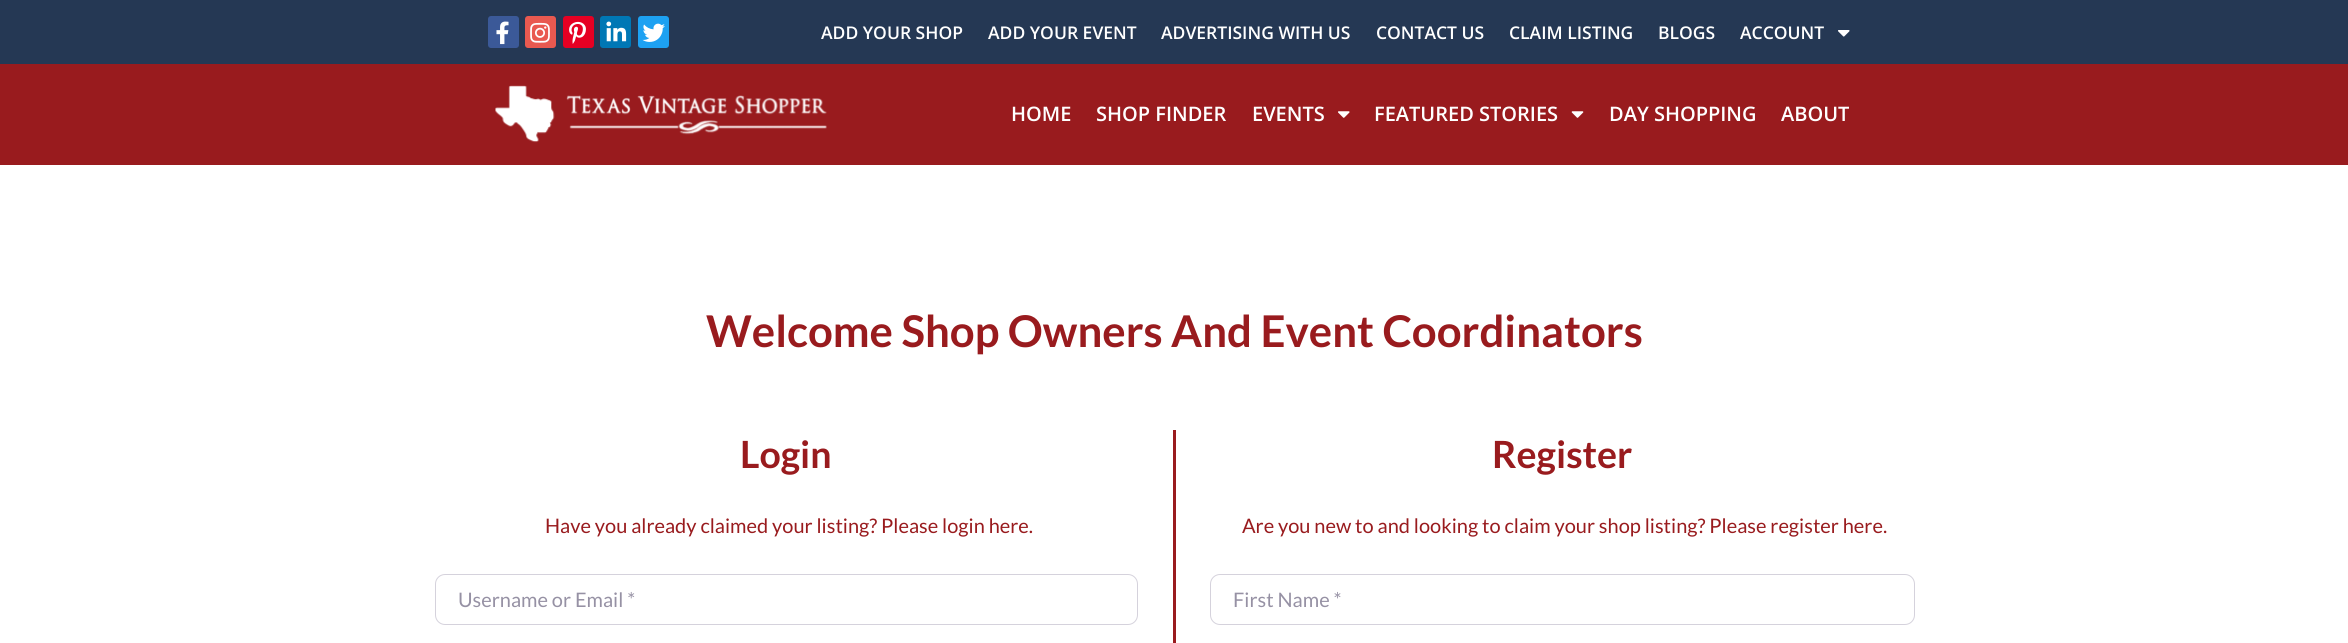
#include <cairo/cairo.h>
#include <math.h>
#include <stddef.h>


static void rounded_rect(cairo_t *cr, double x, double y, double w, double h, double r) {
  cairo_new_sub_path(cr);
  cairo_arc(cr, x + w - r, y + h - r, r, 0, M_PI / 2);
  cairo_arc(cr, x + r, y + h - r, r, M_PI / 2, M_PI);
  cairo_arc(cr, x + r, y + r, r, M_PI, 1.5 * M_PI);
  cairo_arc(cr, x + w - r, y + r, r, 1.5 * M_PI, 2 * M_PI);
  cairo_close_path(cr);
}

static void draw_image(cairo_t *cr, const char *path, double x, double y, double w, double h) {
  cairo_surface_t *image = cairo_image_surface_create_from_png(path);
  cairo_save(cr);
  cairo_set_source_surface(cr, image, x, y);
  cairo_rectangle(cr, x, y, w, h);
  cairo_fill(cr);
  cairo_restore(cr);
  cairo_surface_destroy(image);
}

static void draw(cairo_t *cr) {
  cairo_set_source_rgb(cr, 1, 1, 1);
  cairo_paint(cr);
  cairo_set_source_rgb(cr, 37 / 255.0, 56 / 255.0, 84 / 255.0);
  cairo_rectangle(cr, 0, 0, 2348, 64);
  cairo_fill(cr);
  cairo_set_source_rgb(cr, 59 / 255.0, 89 / 255.0, 152 / 255.0);
  rounded_rect(cr, 488, 16, 31, 32, 3);
  cairo_fill(cr);
  draw_image(cr, "images/1.png", 496, 21, 13, 24);
  cairo_set_source_rgb(cr, 233 / 255.0, 89 / 255.0, 80 / 255.0);
  rounded_rect(cr, 525, 16, 31, 32, 3);
  cairo_fill(cr);
  draw_image(cr, "images/2.png", 530, 22, 20, 21);
  cairo_set_source_rgb(cr, 230 / 255.0, 0, 35 / 255.0);
  rounded_rect(cr, 563, 16, 31, 32, 3);
  cairo_fill(cr);
  draw_image(cr, "images/3.png", 569, 21, 17, 23);
  cairo_set_source_rgb(cr, 0, 119 / 255.0, 181 / 255.0);
  rounded_rect(cr, 600, 16, 31, 32, 3);
  cairo_fill(cr);
  draw_image(cr, "images/4.png", 606, 21, 21, 21);
  cairo_set_source_rgb(cr, 29 / 255.0, 161 / 255.0, 242 / 255.0);
  rounded_rect(cr, 638, 16, 31, 32, 3);
  cairo_fill(cr);
  draw_image(cr, "images/5.png", 642, 23, 23, 19);
  draw_image(cr, "images/6.png", 1838, 30, 12, 7);
  cairo_set_source_rgb(cr, 153 / 255.0, 27 / 255.0, 30 / 255.0);
  cairo_rectangle(cr, 0, 64, 2348, 101);
  cairo_fill(cr);
  draw_image(cr, "images/7.png", 495, 85, 332, 58);
  draw_image(cr, "images/8.png", 1338, 111, 12, 7);
  draw_image(cr, "images/9.png", 1571, 111, 13, 7);
  cairo_rectangle(cr, 1173, 430, 3, 213);
  cairo_fill(cr);
  rounded_rect(cr, 435.5, 574.5, 702, 50, 9.5);
  cairo_set_source_rgb(cr, 213 / 255.0, 210 / 255.0, 220 / 255.0);
  cairo_set_line_width(cr, 1);
  cairo_stroke(cr);
  rounded_rect(cr, 1210.5, 574.5, 704, 50, 9.5);
  cairo_stroke(cr);
  cairo_select_font_face(cr, "Open Sans SemiBold", CAIRO_FONT_SLANT_NORMAL, CAIRO_FONT_WEIGHT_NORMAL);
  cairo_set_font_size(cr, 17.5);
  cairo_set_source_rgb(cr, 1, 1, 1);
  cairo_move_to(cr, 821, 39);
  cairo_show_text(cr, "ADD YOUR SHOP");
  cairo_move_to(cr, 988, 39);
  cairo_show_text(cr, "ADD YOUR EVENT");
  cairo_move_to(cr, 1161, 39);
  cairo_show_text(cr, "ADVERTISING WITH US");
  cairo_move_to(cr, 1376, 39);
  cairo_show_text(cr, "CONTACT US");
  cairo_move_to(cr, 1509, 39);
  cairo_show_text(cr, "CLAIM LISTING");
  cairo_move_to(cr, 1658, 39);
  cairo_show_text(cr, "BLOGS");
  cairo_move_to(cr, 1740, 39);
  cairo_show_text(cr, "ACCOUNT");
  cairo_set_font_size(cr, 20);
  cairo_move_to(cr, 1011, 121);
  cairo_show_text(cr, "HOME");
  cairo_move_to(cr, 1096, 121);
  cairo_show_text(cr, "SHOP FINDER");
  cairo_move_to(cr, 1252, 121);
  cairo_show_text(cr, "EVENTS");
  cairo_move_to(cr, 1374, 121);
  cairo_show_text(cr, "FEATURED STORIES");
  cairo_move_to(cr, 1609, 121);
  cairo_show_text(cr, "DAY SHOPPING");
  cairo_move_to(cr, 1781, 121);
  cairo_show_text(cr, "ABOUT");
  cairo_select_font_face(cr, "Lato", CAIRO_FONT_SLANT_NORMAL, CAIRO_FONT_WEIGHT_BOLD);
  cairo_set_font_size(cr, 43.75);
  cairo_set_source_rgb(cr, 153 / 255.0, 27 / 255.0, 30 / 255.0);
  cairo_move_to(cr, 706, 347);
  cairo_show_text(cr, "Welcome Shop Owners And Event Coordinators");
  cairo_set_font_size(cr, 37.5);
  cairo_move_to(cr, 740, 468);
  cairo_show_text(cr, "Login");
  cairo_select_font_face(cr, "Lato", CAIRO_FONT_SLANT_NORMAL, CAIRO_FONT_WEIGHT_NORMAL);
  cairo_set_font_size(cr, 20);
  cairo_move_to(cr, 545, 533);
  cairo_show_text(cr, "Have you already claimed your listing? Please login here.");
  cairo_set_source_rgb(cr, 150 / 255.0, 145 / 255.0, 164 / 255.0);
  cairo_move_to(cr, 458, 607);
  cairo_show_text(cr, "Username or Email *");
  cairo_select_font_face(cr, "Lato", CAIRO_FONT_SLANT_NORMAL, CAIRO_FONT_WEIGHT_BOLD);
  cairo_set_font_size(cr, 37.5);
  cairo_set_source_rgb(cr, 153 / 255.0, 27 / 255.0, 30 / 255.0);
  cairo_move_to(cr, 1492, 468);
  cairo_show_text(cr, "Register");
  cairo_select_font_face(cr, "Lato", CAIRO_FONT_SLANT_NORMAL, CAIRO_FONT_WEIGHT_NORMAL);
  cairo_set_font_size(cr, 20);
  cairo_move_to(cr, 1242, 533);
  cairo_show_text(cr, "Are you new to and looking to claim your shop listing? Please register here.");
  cairo_set_source_rgb(cr, 150 / 255.0, 145 / 255.0, 164 / 255.0);
  cairo_move_to(cr, 1233, 607);
  cairo_show_text(cr, "First Name *");
}

int main(void) {
  cairo_surface_t *surface = cairo_image_surface_create(CAIRO_FORMAT_RGB24, 2348, 643);
  cairo_t *cr = cairo_create(surface);
  cairo_font_options_t *options = cairo_font_options_create();
  cairo_font_options_set_hint_metrics(options, CAIRO_HINT_METRICS_OFF);
  cairo_font_options_set_hint_style(options, CAIRO_HINT_STYLE_NONE);
  cairo_set_font_options(cr, options);
  cairo_set_miter_limit(cr, 4);
  draw(cr);
  cairo_surface_write_to_png(surface, "out.png");
  cairo_font_options_destroy(options);
  cairo_destroy(cr);
  cairo_surface_destroy(surface);
  return 0;
}
